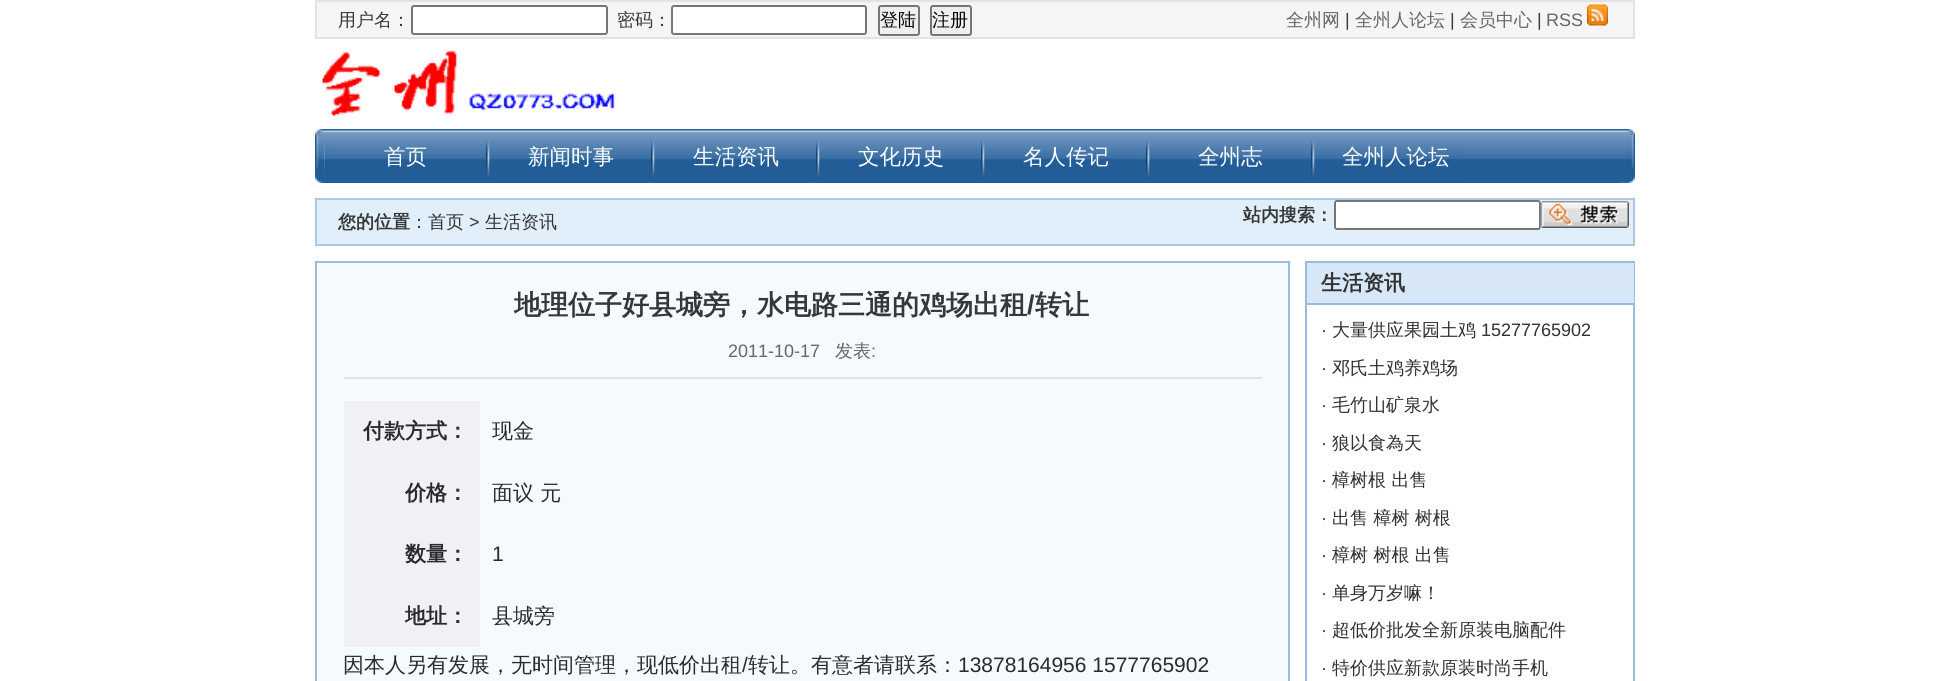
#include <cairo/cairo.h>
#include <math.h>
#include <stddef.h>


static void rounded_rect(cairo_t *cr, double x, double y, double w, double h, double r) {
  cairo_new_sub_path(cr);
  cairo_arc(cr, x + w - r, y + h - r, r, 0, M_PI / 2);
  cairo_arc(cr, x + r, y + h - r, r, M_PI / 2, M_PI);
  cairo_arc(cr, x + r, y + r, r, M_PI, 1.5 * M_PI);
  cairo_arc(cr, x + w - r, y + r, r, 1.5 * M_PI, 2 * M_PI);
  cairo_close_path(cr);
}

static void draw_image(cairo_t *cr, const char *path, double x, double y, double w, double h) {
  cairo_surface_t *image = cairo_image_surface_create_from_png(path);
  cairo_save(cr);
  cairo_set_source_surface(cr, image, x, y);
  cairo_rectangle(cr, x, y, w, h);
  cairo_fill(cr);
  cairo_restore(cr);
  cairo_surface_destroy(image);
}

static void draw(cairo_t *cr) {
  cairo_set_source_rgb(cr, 1, 1, 1);
  cairo_paint(cr);
  cairo_set_source_rgb(cr, 245 / 255.0, 245 / 255.0, 245 / 255.0);
  cairo_rectangle(cr, 316, 1, 1318, 37);
  cairo_fill_preserve(cr);
  cairo_set_source_rgb(cr, 227 / 255.0, 227 / 255.0, 227 / 255.0);
  cairo_stroke(cr);
  cairo_set_source_rgb(cr, 1, 1, 1);
  rounded_rect(cr, 412, 6, 195, 28, 2);
  cairo_fill_preserve(cr);
  cairo_set_source_rgb(cr, 118 / 255.0, 118 / 255.0, 118 / 255.0);
  cairo_stroke(cr);
  cairo_set_source_rgb(cr, 1, 1, 1);
  rounded_rect(cr, 672, 6, 194, 28, 2);
  cairo_fill_preserve(cr);
  cairo_set_source_rgb(cr, 118 / 255.0, 118 / 255.0, 118 / 255.0);
  cairo_stroke(cr);
  cairo_set_source_rgb(cr, 239 / 255.0, 239 / 255.0, 239 / 255.0);
  rounded_rect(cr, 879, 6, 40, 29, 2);
  cairo_fill_preserve(cr);
  cairo_set_source_rgb(cr, 118 / 255.0, 118 / 255.0, 118 / 255.0);
  cairo_stroke(cr);
  cairo_set_source_rgb(cr, 239 / 255.0, 239 / 255.0, 239 / 255.0);
  rounded_rect(cr, 931, 6, 40, 29, 2);
  cairo_fill_preserve(cr);
  cairo_set_source_rgb(cr, 118 / 255.0, 118 / 255.0, 118 / 255.0);
  cairo_stroke(cr);
  draw_image(cr, "images/1.png", 1587, 4, 21, 22);
  draw_image(cr, "images/2.png", 322, 50, 294, 66);
  draw_image(cr, "images/3.png", 315, 129, 9, 54);
  draw_image(cr, "images/4.png", 1626, 129, 9, 54);
  draw_image(cr, "images/5.png", 324, 129, 1302, 54);
  draw_image(cr, "images/6.png", 324, 143, 7, 40);
  draw_image(cr, "images/7.png", 486, 140, 164, 43);
  draw_image(cr, "images/8.png", 651, 140, 164, 43);
  draw_image(cr, "images/9.png", 816, 140, 163, 43);
  draw_image(cr, "images/10.png", 981, 140, 160, 43);
  draw_image(cr, "images/11.png", 1146, 140, 157, 43);
  draw_image(cr, "images/12.png", 1311, 140, 154, 43);
  cairo_set_source_rgb(cr, 225 / 255.0, 239 / 255.0, 251 / 255.0);
  cairo_rectangle(cr, 316, 199, 1318, 46);
  cairo_fill_preserve(cr);
  cairo_set_source_rgb(cr, 176 / 255.0, 199 / 255.0, 221 / 255.0);
  cairo_stroke(cr);
  cairo_set_source_rgb(cr, 1, 1, 1);
  rounded_rect(cr, 1335, 201, 205, 28, 2);
  cairo_fill_preserve(cr);
  cairo_set_source_rgb(cr, 118 / 255.0, 118 / 255.0, 118 / 255.0);
  cairo_stroke(cr);
  draw_image(cr, "images/13.png", 1540, 201, 89, 27);
  cairo_set_source_rgb(cr, 245 / 255.0, 250 / 255.0, 1);
  cairo_rectangle(cr, 316, 262, 973, 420);
  cairo_fill_preserve(cr);
  cairo_set_source_rgb(cr, 153 / 255.0, 187 / 255.0, 221 / 255.0);
  cairo_stroke(cr);
  cairo_set_source_rgb(cr, 225 / 255.0, 228 / 255.0, 230 / 255.0);
  cairo_rectangle(cr, 344, 377, 918, 2);
  cairo_fill(cr);
  cairo_set_source_rgb(cr, 239 / 255.0, 241 / 255.0, 247 / 255.0);
  cairo_rectangle(cr, 344, 401, 136, 246);
  cairo_fill(cr);
  cairo_rectangle(cr, 1306, 262, 328, 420);
  cairo_set_source_rgb(cr, 153 / 255.0, 187 / 255.0, 221 / 255.0);
  cairo_stroke(cr);
  cairo_set_source_rgb(cr, 215 / 255.0, 231 / 255.0, 247 / 255.0);
  cairo_rectangle(cr, 1307, 263, 327, 40);
  cairo_fill(cr);
  cairo_set_source_rgb(cr, 153 / 255.0, 187 / 255.0, 221 / 255.0);
  cairo_rectangle(cr, 1307, 303, 327, 2);
  cairo_fill(cr);
  cairo_select_font_face(cr, "WenQuanYi Zen Hei Medium", CAIRO_FONT_SLANT_NORMAL, CAIRO_FONT_WEIGHT_NORMAL);
  cairo_set_font_size(cr, 18);
  cairo_set_source_rgb(cr, 54 / 255.0, 55 / 255.0, 55 / 255.0);
  cairo_move_to(cr, 338, 26);
  cairo_show_text(cr, "用户名：");
  cairo_move_to(cr, 617, 26);
  cairo_show_text(cr, "密码：");
  cairo_set_source_rgb(cr, 0, 0, 0);
  cairo_move_to(cr, 880, 26);
  cairo_show_text(cr, "登陆");
  cairo_move_to(cr, 932, 26);
  cairo_show_text(cr, "注册");
  cairo_set_source_rgb(cr, 102 / 255.0, 102 / 255.0, 102 / 255.0);
  cairo_move_to(cr, 1286, 26);
  cairo_show_text(cr, "全州网");
  cairo_select_font_face(cr, "Liberation Sans", CAIRO_FONT_SLANT_NORMAL, CAIRO_FONT_WEIGHT_NORMAL);
  cairo_set_source_rgb(cr, 54 / 255.0, 55 / 255.0, 55 / 255.0);
  cairo_move_to(cr, 1345, 26);
  cairo_show_text(cr, "|");
  cairo_select_font_face(cr, "WenQuanYi Zen Hei Medium", CAIRO_FONT_SLANT_NORMAL, CAIRO_FONT_WEIGHT_NORMAL);
  cairo_set_source_rgb(cr, 102 / 255.0, 102 / 255.0, 102 / 255.0);
  cairo_move_to(cr, 1355, 26);
  cairo_show_text(cr, "全州人论坛");
  cairo_select_font_face(cr, "Liberation Sans", CAIRO_FONT_SLANT_NORMAL, CAIRO_FONT_WEIGHT_NORMAL);
  cairo_set_source_rgb(cr, 54 / 255.0, 55 / 255.0, 55 / 255.0);
  cairo_move_to(cr, 1450, 26);
  cairo_show_text(cr, "|");
  cairo_select_font_face(cr, "WenQuanYi Zen Hei Medium", CAIRO_FONT_SLANT_NORMAL, CAIRO_FONT_WEIGHT_NORMAL);
  cairo_set_source_rgb(cr, 102 / 255.0, 102 / 255.0, 102 / 255.0);
  cairo_move_to(cr, 1460, 26);
  cairo_show_text(cr, "会员中心");
  cairo_select_font_face(cr, "Liberation Sans", CAIRO_FONT_SLANT_NORMAL, CAIRO_FONT_WEIGHT_NORMAL);
  cairo_set_source_rgb(cr, 54 / 255.0, 55 / 255.0, 55 / 255.0);
  cairo_move_to(cr, 1537, 26);
  cairo_show_text(cr, "|");
  cairo_set_source_rgb(cr, 102 / 255.0, 102 / 255.0, 102 / 255.0);
  cairo_move_to(cr, 1546, 26);
  cairo_show_text(cr, "RSS");
  cairo_select_font_face(cr, "WenQuanYi Zen Hei Medium", CAIRO_FONT_SLANT_NORMAL, CAIRO_FONT_WEIGHT_NORMAL);
  cairo_set_font_size(cr, 21.5);
  cairo_set_source_rgb(cr, 1, 1, 1);
  cairo_move_to(cr, 384, 164);
  cairo_show_text(cr, "首页");
  cairo_move_to(cr, 528, 164);
  cairo_show_text(cr, "新闻时事");
  cairo_move_to(cr, 693, 164);
  cairo_show_text(cr, "生活资讯");
  cairo_move_to(cr, 858, 164);
  cairo_show_text(cr, "文化历史");
  cairo_move_to(cr, 1023, 164);
  cairo_show_text(cr, "名人传记");
  cairo_move_to(cr, 1198, 164);
  cairo_show_text(cr, "全州志");
  cairo_move_to(cr, 1342, 164);
  cairo_show_text(cr, "全州人论坛");
  cairo_select_font_face(cr, "WenQuanYi Zen Hei", CAIRO_FONT_SLANT_NORMAL, CAIRO_FONT_WEIGHT_BOLD);
  cairo_set_font_size(cr, 18);
  cairo_set_source_rgb(cr, 54 / 255.0, 55 / 255.0, 55 / 255.0);
  cairo_move_to(cr, 338, 228);
  cairo_show_text(cr, "您的位置");
  cairo_select_font_face(cr, "WenQuanYi Zen Hei Medium", CAIRO_FONT_SLANT_NORMAL, CAIRO_FONT_WEIGHT_NORMAL);
  cairo_move_to(cr, 410, 228);
  cairo_show_text(cr, "：");
  cairo_set_source_rgb(cr, 49 / 255.0, 49 / 255.0, 49 / 255.0);
  cairo_move_to(cr, 428, 228);
  cairo_show_text(cr, "首页");
  cairo_select_font_face(cr, "Liberation Sans", CAIRO_FONT_SLANT_NORMAL, CAIRO_FONT_WEIGHT_NORMAL);
  cairo_set_source_rgb(cr, 54 / 255.0, 55 / 255.0, 55 / 255.0);
  cairo_move_to(cr, 469, 228);
  cairo_show_text(cr, ">");
  cairo_select_font_face(cr, "WenQuanYi Zen Hei Medium", CAIRO_FONT_SLANT_NORMAL, CAIRO_FONT_WEIGHT_NORMAL);
  cairo_set_source_rgb(cr, 49 / 255.0, 49 / 255.0, 49 / 255.0);
  cairo_move_to(cr, 485, 228);
  cairo_show_text(cr, "生活资讯");
  cairo_select_font_face(cr, "WenQuanYi Zen Hei", CAIRO_FONT_SLANT_NORMAL, CAIRO_FONT_WEIGHT_BOLD);
  cairo_set_source_rgb(cr, 54 / 255.0, 55 / 255.0, 55 / 255.0);
  cairo_move_to(cr, 1243, 221);
  cairo_show_text(cr, "站内搜索：");
  cairo_set_font_size(cr, 27);
  cairo_move_to(cr, 514, 314);
  cairo_show_text(cr, "地理位子好县城旁，水电路三通的鸡场出租");
  cairo_select_font_face(cr, "Liberation Sans", CAIRO_FONT_SLANT_NORMAL, CAIRO_FONT_WEIGHT_BOLD);
  cairo_move_to(cr, 1027, 314);
  cairo_show_text(cr, "/");
  cairo_select_font_face(cr, "WenQuanYi Zen Hei", CAIRO_FONT_SLANT_NORMAL, CAIRO_FONT_WEIGHT_BOLD);
  cairo_move_to(cr, 1035, 314);
  cairo_show_text(cr, "转让");
  cairo_select_font_face(cr, "Liberation Sans", CAIRO_FONT_SLANT_NORMAL, CAIRO_FONT_WEIGHT_NORMAL);
  cairo_set_font_size(cr, 18);
  cairo_set_source_rgb(cr, 102 / 255.0, 102 / 255.0, 102 / 255.0);
  cairo_move_to(cr, 728, 357);
  cairo_show_text(cr, "2011-10-17");
  cairo_select_font_face(cr, "WenQuanYi Zen Hei Medium", CAIRO_FONT_SLANT_NORMAL, CAIRO_FONT_WEIGHT_NORMAL);
  cairo_move_to(cr, 835, 357);
  cairo_show_text(cr, "发表");
  cairo_select_font_face(cr, "Liberation Sans", CAIRO_FONT_SLANT_NORMAL, CAIRO_FONT_WEIGHT_NORMAL);
  cairo_move_to(cr, 871, 357);
  cairo_show_text(cr, ":");
  cairo_select_font_face(cr, "WenQuanYi Zen Hei", CAIRO_FONT_SLANT_NORMAL, CAIRO_FONT_WEIGHT_BOLD);
  cairo_set_font_size(cr, 21);
  cairo_set_source_rgb(cr, 42 / 255.0, 42 / 255.0, 42 / 255.0);
  cairo_move_to(cr, 363, 438);
  cairo_show_text(cr, "付款方式：");
  cairo_select_font_face(cr, "WenQuanYi Zen Hei Medium", CAIRO_FONT_SLANT_NORMAL, CAIRO_FONT_WEIGHT_NORMAL);
  cairo_move_to(cr, 492, 438);
  cairo_show_text(cr, "现金");
  cairo_select_font_face(cr, "WenQuanYi Zen Hei", CAIRO_FONT_SLANT_NORMAL, CAIRO_FONT_WEIGHT_BOLD);
  cairo_move_to(cr, 405, 500);
  cairo_show_text(cr, "价格：");
  cairo_select_font_face(cr, "WenQuanYi Zen Hei Medium", CAIRO_FONT_SLANT_NORMAL, CAIRO_FONT_WEIGHT_NORMAL);
  cairo_move_to(cr, 492, 500);
  cairo_show_text(cr, "面议 元");
  cairo_select_font_face(cr, "WenQuanYi Zen Hei", CAIRO_FONT_SLANT_NORMAL, CAIRO_FONT_WEIGHT_BOLD);
  cairo_move_to(cr, 405, 561);
  cairo_show_text(cr, "数量：");
  cairo_select_font_face(cr, "Liberation Sans", CAIRO_FONT_SLANT_NORMAL, CAIRO_FONT_WEIGHT_NORMAL);
  cairo_move_to(cr, 492, 561);
  cairo_show_text(cr, "1");
  cairo_select_font_face(cr, "WenQuanYi Zen Hei", CAIRO_FONT_SLANT_NORMAL, CAIRO_FONT_WEIGHT_BOLD);
  cairo_move_to(cr, 405, 623);
  cairo_show_text(cr, "地址：");
  cairo_select_font_face(cr, "WenQuanYi Zen Hei Medium", CAIRO_FONT_SLANT_NORMAL, CAIRO_FONT_WEIGHT_NORMAL);
  cairo_move_to(cr, 492, 623);
  cairo_show_text(cr, "县城旁");
  cairo_move_to(cr, 343, 672);
  cairo_show_text(cr, "因本人另有发展，无时间管理，现低价出租");
  cairo_select_font_face(cr, "Liberation Sans", CAIRO_FONT_SLANT_NORMAL, CAIRO_FONT_WEIGHT_NORMAL);
  cairo_move_to(cr, 742, 672);
  cairo_show_text(cr, "/");
  cairo_select_font_face(cr, "WenQuanYi Zen Hei Medium", CAIRO_FONT_SLANT_NORMAL, CAIRO_FONT_WEIGHT_NORMAL);
  cairo_move_to(cr, 748, 672);
  cairo_show_text(cr, "转让。有意者请联系：");
  cairo_select_font_face(cr, "Liberation Sans", CAIRO_FONT_SLANT_NORMAL, CAIRO_FONT_WEIGHT_NORMAL);
  cairo_move_to(cr, 958, 672);
  cairo_show_text(cr, "13878164956 1577765902");
  cairo_select_font_face(cr, "WenQuanYi Zen Hei", CAIRO_FONT_SLANT_NORMAL, CAIRO_FONT_WEIGHT_BOLD);
  cairo_set_source_rgb(cr, 49 / 255.0, 49 / 255.0, 49 / 255.0);
  cairo_move_to(cr, 1321, 290);
  cairo_show_text(cr, "生活资讯");
  cairo_select_font_face(cr, "Liberation Sans", CAIRO_FONT_SLANT_NORMAL, CAIRO_FONT_WEIGHT_NORMAL);
  cairo_set_font_size(cr, 18);
  cairo_set_source_rgb(cr, 54 / 255.0, 55 / 255.0, 55 / 255.0);
  cairo_move_to(cr, 1321, 336);
  cairo_show_text(cr, "·");
  cairo_select_font_face(cr, "WenQuanYi Zen Hei Medium", CAIRO_FONT_SLANT_NORMAL, CAIRO_FONT_WEIGHT_NORMAL);
  cairo_set_source_rgb(cr, 49 / 255.0, 49 / 255.0, 49 / 255.0);
  cairo_move_to(cr, 1332, 336);
  cairo_show_text(cr, "大量供应果园土鸡");
  cairo_select_font_face(cr, "Liberation Sans", CAIRO_FONT_SLANT_NORMAL, CAIRO_FONT_WEIGHT_NORMAL);
  cairo_move_to(cr, 1481, 336);
  cairo_show_text(cr, "15277765902");
  cairo_set_source_rgb(cr, 54 / 255.0, 55 / 255.0, 55 / 255.0);
  cairo_move_to(cr, 1321, 374);
  cairo_show_text(cr, "·");
  cairo_select_font_face(cr, "WenQuanYi Zen Hei Medium", CAIRO_FONT_SLANT_NORMAL, CAIRO_FONT_WEIGHT_NORMAL);
  cairo_set_source_rgb(cr, 49 / 255.0, 49 / 255.0, 49 / 255.0);
  cairo_move_to(cr, 1332, 374);
  cairo_show_text(cr, "邓氏土鸡养鸡场");
  cairo_select_font_face(cr, "Liberation Sans", CAIRO_FONT_SLANT_NORMAL, CAIRO_FONT_WEIGHT_NORMAL);
  cairo_set_source_rgb(cr, 54 / 255.0, 55 / 255.0, 55 / 255.0);
  cairo_move_to(cr, 1321, 411);
  cairo_show_text(cr, "·");
  cairo_select_font_face(cr, "WenQuanYi Zen Hei Medium", CAIRO_FONT_SLANT_NORMAL, CAIRO_FONT_WEIGHT_NORMAL);
  cairo_set_source_rgb(cr, 49 / 255.0, 49 / 255.0, 49 / 255.0);
  cairo_move_to(cr, 1332, 411);
  cairo_show_text(cr, "毛竹山矿泉水");
  cairo_select_font_face(cr, "Liberation Sans", CAIRO_FONT_SLANT_NORMAL, CAIRO_FONT_WEIGHT_NORMAL);
  cairo_set_source_rgb(cr, 54 / 255.0, 55 / 255.0, 55 / 255.0);
  cairo_move_to(cr, 1321, 449);
  cairo_show_text(cr, "·");
  cairo_select_font_face(cr, "WenQuanYi Zen Hei Medium", CAIRO_FONT_SLANT_NORMAL, CAIRO_FONT_WEIGHT_NORMAL);
  cairo_set_source_rgb(cr, 49 / 255.0, 49 / 255.0, 49 / 255.0);
  cairo_move_to(cr, 1332, 449);
  cairo_show_text(cr, "狼以食為天");
  cairo_select_font_face(cr, "Liberation Sans", CAIRO_FONT_SLANT_NORMAL, CAIRO_FONT_WEIGHT_NORMAL);
  cairo_set_source_rgb(cr, 54 / 255.0, 55 / 255.0, 55 / 255.0);
  cairo_move_to(cr, 1321, 486);
  cairo_show_text(cr, "·");
  cairo_select_font_face(cr, "WenQuanYi Zen Hei Medium", CAIRO_FONT_SLANT_NORMAL, CAIRO_FONT_WEIGHT_NORMAL);
  cairo_set_source_rgb(cr, 49 / 255.0, 49 / 255.0, 49 / 255.0);
  cairo_move_to(cr, 1332, 486);
  cairo_show_text(cr, "樟树根 出售");
  cairo_select_font_face(cr, "Liberation Sans", CAIRO_FONT_SLANT_NORMAL, CAIRO_FONT_WEIGHT_NORMAL);
  cairo_set_source_rgb(cr, 54 / 255.0, 55 / 255.0, 55 / 255.0);
  cairo_move_to(cr, 1321, 524);
  cairo_show_text(cr, "·");
  cairo_select_font_face(cr, "WenQuanYi Zen Hei Medium", CAIRO_FONT_SLANT_NORMAL, CAIRO_FONT_WEIGHT_NORMAL);
  cairo_set_source_rgb(cr, 49 / 255.0, 49 / 255.0, 49 / 255.0);
  cairo_move_to(cr, 1332, 524);
  cairo_show_text(cr, "出售 樟树 树根");
  cairo_select_font_face(cr, "Liberation Sans", CAIRO_FONT_SLANT_NORMAL, CAIRO_FONT_WEIGHT_NORMAL);
  cairo_set_source_rgb(cr, 54 / 255.0, 55 / 255.0, 55 / 255.0);
  cairo_move_to(cr, 1321, 561);
  cairo_show_text(cr, "·");
  cairo_select_font_face(cr, "WenQuanYi Zen Hei Medium", CAIRO_FONT_SLANT_NORMAL, CAIRO_FONT_WEIGHT_NORMAL);
  cairo_set_source_rgb(cr, 49 / 255.0, 49 / 255.0, 49 / 255.0);
  cairo_move_to(cr, 1332, 561);
  cairo_show_text(cr, "樟树 树根 出售");
  cairo_select_font_face(cr, "Liberation Sans", CAIRO_FONT_SLANT_NORMAL, CAIRO_FONT_WEIGHT_NORMAL);
  cairo_set_source_rgb(cr, 54 / 255.0, 55 / 255.0, 55 / 255.0);
  cairo_move_to(cr, 1321, 599);
  cairo_show_text(cr, "·");
  cairo_select_font_face(cr, "WenQuanYi Zen Hei Medium", CAIRO_FONT_SLANT_NORMAL, CAIRO_FONT_WEIGHT_NORMAL);
  cairo_set_source_rgb(cr, 49 / 255.0, 49 / 255.0, 49 / 255.0);
  cairo_move_to(cr, 1332, 599);
  cairo_show_text(cr, "单身万岁嘛！");
  cairo_select_font_face(cr, "Liberation Sans", CAIRO_FONT_SLANT_NORMAL, CAIRO_FONT_WEIGHT_NORMAL);
  cairo_set_source_rgb(cr, 54 / 255.0, 55 / 255.0, 55 / 255.0);
  cairo_move_to(cr, 1321, 636);
  cairo_show_text(cr, "·");
  cairo_select_font_face(cr, "WenQuanYi Zen Hei Medium", CAIRO_FONT_SLANT_NORMAL, CAIRO_FONT_WEIGHT_NORMAL);
  cairo_set_source_rgb(cr, 49 / 255.0, 49 / 255.0, 49 / 255.0);
  cairo_move_to(cr, 1332, 636);
  cairo_show_text(cr, "超低价批发全新原装电脑配件");
  cairo_select_font_face(cr, "Liberation Sans", CAIRO_FONT_SLANT_NORMAL, CAIRO_FONT_WEIGHT_NORMAL);
  cairo_set_source_rgb(cr, 54 / 255.0, 55 / 255.0, 55 / 255.0);
  cairo_move_to(cr, 1321, 674);
  cairo_show_text(cr, "·");
  cairo_select_font_face(cr, "WenQuanYi Zen Hei Medium", CAIRO_FONT_SLANT_NORMAL, CAIRO_FONT_WEIGHT_NORMAL);
  cairo_set_source_rgb(cr, 49 / 255.0, 49 / 255.0, 49 / 255.0);
  cairo_move_to(cr, 1332, 674);
  cairo_show_text(cr, "特价供应新款原装时尚手机");
}

int main(void) {
  cairo_surface_t *surface = cairo_image_surface_create(CAIRO_FORMAT_RGB24, 1948, 681);
  cairo_t *cr = cairo_create(surface);
  cairo_font_options_t *options = cairo_font_options_create();
  cairo_font_options_set_hint_metrics(options, CAIRO_HINT_METRICS_OFF);
  cairo_font_options_set_hint_style(options, CAIRO_HINT_STYLE_NONE);
  cairo_set_font_options(cr, options);
  cairo_set_miter_limit(cr, 4);
  draw(cr);
  cairo_surface_write_to_png(surface, "out.png");
  cairo_font_options_destroy(options);
  cairo_destroy(cr);
  cairo_surface_destroy(surface);
  return 0;
}
